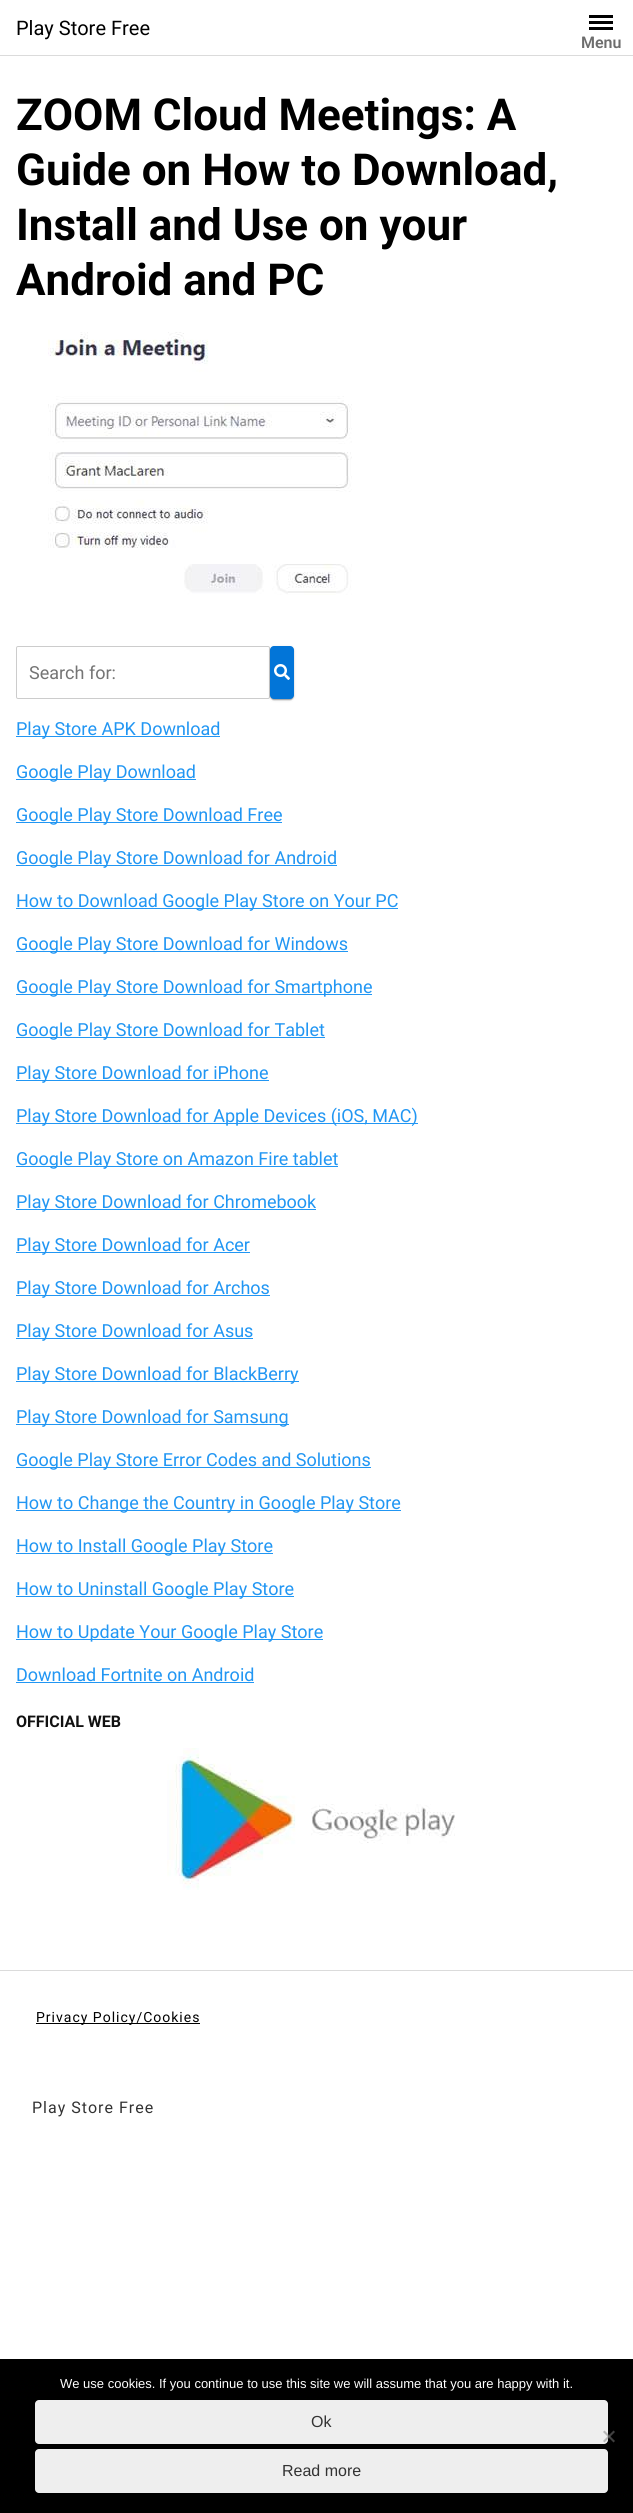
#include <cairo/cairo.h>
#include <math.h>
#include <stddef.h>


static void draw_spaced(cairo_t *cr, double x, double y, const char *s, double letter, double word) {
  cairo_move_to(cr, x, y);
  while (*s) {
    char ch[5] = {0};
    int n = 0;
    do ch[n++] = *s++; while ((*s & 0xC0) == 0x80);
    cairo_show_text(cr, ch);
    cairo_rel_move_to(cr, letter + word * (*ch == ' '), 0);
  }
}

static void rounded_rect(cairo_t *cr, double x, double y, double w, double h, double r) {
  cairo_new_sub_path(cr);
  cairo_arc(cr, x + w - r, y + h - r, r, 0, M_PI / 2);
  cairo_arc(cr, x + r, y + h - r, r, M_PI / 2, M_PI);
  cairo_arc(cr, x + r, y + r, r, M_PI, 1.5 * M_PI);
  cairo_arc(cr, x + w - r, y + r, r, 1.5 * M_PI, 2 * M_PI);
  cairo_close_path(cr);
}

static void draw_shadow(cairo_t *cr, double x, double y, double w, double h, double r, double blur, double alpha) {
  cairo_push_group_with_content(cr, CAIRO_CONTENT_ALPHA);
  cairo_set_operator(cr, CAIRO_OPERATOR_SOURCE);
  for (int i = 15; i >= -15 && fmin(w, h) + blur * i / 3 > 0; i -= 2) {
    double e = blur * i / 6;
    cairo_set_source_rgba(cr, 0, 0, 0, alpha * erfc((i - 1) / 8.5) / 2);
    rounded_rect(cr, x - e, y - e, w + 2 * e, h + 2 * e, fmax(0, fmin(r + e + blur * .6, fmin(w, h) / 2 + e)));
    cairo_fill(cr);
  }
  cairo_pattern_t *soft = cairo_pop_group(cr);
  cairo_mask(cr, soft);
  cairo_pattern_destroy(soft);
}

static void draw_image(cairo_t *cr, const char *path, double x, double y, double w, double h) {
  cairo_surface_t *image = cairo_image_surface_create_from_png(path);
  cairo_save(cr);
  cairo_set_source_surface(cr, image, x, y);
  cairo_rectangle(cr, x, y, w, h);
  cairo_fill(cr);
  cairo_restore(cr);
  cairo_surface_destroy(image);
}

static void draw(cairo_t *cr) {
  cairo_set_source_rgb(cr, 1, 1, 1);
  cairo_paint(cr);
  cairo_set_source_rgb(cr, 219 / 255.0, 219 / 255.0, 219 / 255.0);
  cairo_rectangle(cr, 0, 55, 633, 1);
  cairo_fill(cr);
  cairo_set_source_rgb(cr, 0, 0, 0);
  cairo_rectangle(cr, 589, 21, 24, 3);
  cairo_fill(cr);
  cairo_rectangle(cr, 589, 15, 24, 3);
  cairo_fill(cr);
  cairo_rectangle(cr, 589, 27, 24, 3);
  cairo_fill(cr);
  draw_image(cr, "images/1.png", 48, 332, 304, 263);
  rounded_rect(cr, 16.5, 646.5, 253, 52, 1.5);
  cairo_set_source_rgb(cr, 204 / 255.0, 204 / 255.0, 204 / 255.0);
  cairo_set_line_width(cr, 1);
  cairo_stroke(cr);
  cairo_set_source_rgb(cr, 0, 0, 0);
  draw_shadow(cr, 270, 647, 24, 53, 4, 1.5, 0.12);
  draw_shadow(cr, 271, 649, 22, 51, 3, 0.5, 0.2);
  draw_shadow(cr, 270, 647, 24, 53, 4, 0.5, 0.14);
  cairo_set_source_rgb(cr, 2 / 255.0, 117 / 255.0, 216 / 255.0);
  rounded_rect(cr, 270, 646, 24, 53, 4);
  cairo_fill(cr);
  draw_image(cr, "images/2.png", 274, 664, 16, 16);
  cairo_set_source_rgb(cr, 33 / 255.0, 150 / 255.0, 243 / 255.0);
  cairo_rectangle(cr, 16, 736, 204, 1);
  cairo_fill(cr);
  cairo_rectangle(cr, 16, 779, 180, 1);
  cairo_fill(cr);
  cairo_rectangle(cr, 16, 822, 266, 1);
  cairo_fill(cr);
  cairo_rectangle(cr, 16, 865, 321, 1);
  cairo_fill(cr);
  cairo_rectangle(cr, 16, 908, 382, 1);
  cairo_fill(cr);
  cairo_rectangle(cr, 16, 951, 332, 1);
  cairo_fill(cr);
  cairo_rectangle(cr, 16, 994, 356, 1);
  cairo_fill(cr);
  cairo_rectangle(cr, 16, 1037, 309, 1);
  cairo_fill(cr);
  cairo_rectangle(cr, 16, 1080, 253, 1);
  cairo_fill(cr);
  cairo_rectangle(cr, 16, 1123, 402, 1);
  cairo_fill(cr);
  cairo_rectangle(cr, 16, 1166, 322, 1);
  cairo_fill(cr);
  cairo_rectangle(cr, 16, 1209, 300, 1);
  cairo_fill(cr);
  cairo_rectangle(cr, 16, 1252, 234, 1);
  cairo_fill(cr);
  cairo_rectangle(cr, 16, 1295, 254, 1);
  cairo_fill(cr);
  cairo_rectangle(cr, 16, 1338, 237, 1);
  cairo_fill(cr);
  cairo_rectangle(cr, 16, 1381, 283, 1);
  cairo_fill(cr);
  cairo_rectangle(cr, 16, 1424, 273, 1);
  cairo_fill(cr);
  cairo_rectangle(cr, 16, 1467, 355, 1);
  cairo_fill(cr);
  cairo_rectangle(cr, 16, 1510, 385, 1);
  cairo_fill(cr);
  cairo_rectangle(cr, 16, 1553, 257, 1);
  cairo_fill(cr);
  cairo_rectangle(cr, 16, 1596, 278, 1);
  cairo_fill(cr);
  cairo_rectangle(cr, 16, 1639, 307, 1);
  cairo_fill(cr);
  cairo_rectangle(cr, 16, 1682, 238, 1);
  cairo_fill(cr);
  draw_image(cr, "images/3.png", 167, 1748, 288, 142);
  cairo_set_source_rgb(cr, 219 / 255.0, 219 / 255.0, 219 / 255.0);
  cairo_rectangle(cr, 0, 1970, 633, 1);
  cairo_fill(cr);
  cairo_set_source_rgb(cr, 0, 0, 0);
  cairo_rectangle(cr, 36, 2023, 164, 1);
  cairo_fill(cr);
  cairo_rectangle(cr, 0, 2359, 633, 154);
  cairo_fill(cr);
  cairo_set_source_rgb(cr, 238 / 255.0, 238 / 255.0, 238 / 255.0);
  rounded_rect(cr, 35, 2400, 573, 44, 4);
  cairo_fill(cr);
  rounded_rect(cr, 35, 2449, 573, 44, 4);
  cairo_fill(cr);
  cairo_set_source_rgba(cr, 128 / 255.0, 128 / 255.0, 128 / 255.0, 0.5);
  cairo_new_path(cr);
  cairo_move_to(cr, 613.5, 2430.5);
  cairo_line_to(cr, 615, 2432);
  cairo_line_to(cr, 604.5, 2442.5);
  cairo_line_to(cr, 603, 2441);
  cairo_close_path(cr);
  cairo_fill(cr);
  cairo_new_path(cr);
  cairo_move_to(cr, 603, 2432);
  cairo_line_to(cr, 604.5, 2430.5);
  cairo_line_to(cr, 615, 2441);
  cairo_line_to(cr, 613.5, 2442.5);
  cairo_close_path(cr);
  cairo_fill(cr);
  cairo_select_font_face(cr, "Roboto", CAIRO_FONT_SLANT_NORMAL, CAIRO_FONT_WEIGHT_NORMAL);
  cairo_set_font_size(cr, 20);
  cairo_set_source_rgb(cr, 0, 0, 0);
  cairo_move_to(cr, 16, 35);
  cairo_show_text(cr, "Play Store Free");
  cairo_select_font_face(cr, "Roboto SemiBold", CAIRO_FONT_SLANT_NORMAL, CAIRO_FONT_WEIGHT_NORMAL);
  cairo_set_font_size(cr, 16);
  cairo_set_source_rgb(cr, 109 / 255.0, 109 / 255.0, 109 / 255.0);
  cairo_move_to(cr, 581, 48);
  cairo_show_text(cr, "Menu");
  cairo_select_font_face(cr, "Roboto", CAIRO_FONT_SLANT_NORMAL, CAIRO_FONT_WEIGHT_BOLD);
  cairo_set_font_size(cr, 44);
  cairo_set_source_rgb(cr, 0, 0, 0);
  cairo_move_to(cr, 16, 130);
  cairo_show_text(cr, "ZOOM Cloud Meetings: A");
  cairo_move_to(cr, 16, 185);
  cairo_show_text(cr, "Guide on How to Download,");
  cairo_move_to(cr, 16, 240);
  cairo_show_text(cr, "Install and Use on your");
  cairo_move_to(cr, 16, 295);
  cairo_show_text(cr, "Android and PC");
  cairo_select_font_face(cr, "Roboto", CAIRO_FONT_SLANT_NORMAL, CAIRO_FONT_WEIGHT_NORMAL);
  cairo_set_font_size(cr, 18);
  cairo_set_source_rgb(cr, 117 / 255.0, 117 / 255.0, 117 / 255.0);
  cairo_move_to(cr, 29, 679);
  cairo_show_text(cr, "Search for:");
  cairo_set_source_rgb(cr, 33 / 255.0, 150 / 255.0, 243 / 255.0);
  cairo_move_to(cr, 16, 735);
  cairo_show_text(cr, "Play Store APK Download");
  cairo_move_to(cr, 16, 778);
  cairo_show_text(cr, "Google Play Download");
  cairo_move_to(cr, 16, 821);
  cairo_show_text(cr, "Google Play Store Download Free");
  cairo_move_to(cr, 16, 864);
  cairo_show_text(cr, "Google Play Store Download for Android");
  cairo_move_to(cr, 16, 907);
  cairo_show_text(cr, "How to Download Google Play Store on Your PC");
  cairo_move_to(cr, 16, 950);
  cairo_show_text(cr, "Google Play Store Download for Windows");
  cairo_move_to(cr, 16, 993);
  cairo_show_text(cr, "Google Play Store Download for Smartphone");
  cairo_move_to(cr, 16, 1036);
  cairo_show_text(cr, "Google Play Store Download for Tablet");
  cairo_move_to(cr, 16, 1079);
  cairo_show_text(cr, "Play Store Download for iPhone");
  cairo_move_to(cr, 16, 1122);
  cairo_show_text(cr, "Play Store Download for Apple Devices (iOS, MAC)");
  cairo_move_to(cr, 16, 1165);
  cairo_show_text(cr, "Google Play Store on Amazon Fire tablet");
  cairo_move_to(cr, 16, 1208);
  cairo_show_text(cr, "Play Store Download for Chromebook");
  cairo_move_to(cr, 16, 1251);
  cairo_show_text(cr, "Play Store Download for Acer");
  cairo_move_to(cr, 16, 1294);
  cairo_show_text(cr, "Play Store Download for Archos");
  cairo_move_to(cr, 16, 1337);
  cairo_show_text(cr, "Play Store Download for Asus");
  cairo_move_to(cr, 16, 1380);
  cairo_show_text(cr, "Play Store Download for BlackBerry");
  cairo_move_to(cr, 16, 1423);
  cairo_show_text(cr, "Play Store Download for Samsung");
  cairo_move_to(cr, 16, 1466);
  cairo_show_text(cr, "Google Play Store Error Codes and Solutions");
  cairo_move_to(cr, 16, 1509);
  cairo_show_text(cr, "How to Change the Country in Google Play Store");
  cairo_move_to(cr, 16, 1552);
  cairo_show_text(cr, "How to Install Google Play Store");
  cairo_move_to(cr, 16, 1595);
  cairo_show_text(cr, "How to Uninstall Google Play Store");
  cairo_move_to(cr, 16, 1638);
  cairo_show_text(cr, "How to Update Your Google Play Store");
  cairo_move_to(cr, 16, 1681);
  cairo_show_text(cr, "Download Fortnite on Android");
  cairo_select_font_face(cr, "Roboto", CAIRO_FONT_SLANT_NORMAL, CAIRO_FONT_WEIGHT_BOLD);
  cairo_set_font_size(cr, 16);
  cairo_set_source_rgb(cr, 17 / 255.0, 17 / 255.0, 17 / 255.0);
  cairo_move_to(cr, 16, 1727);
  cairo_show_text(cr, "OFFICIAL WEB");
  cairo_select_font_face(cr, "Roboto", CAIRO_FONT_SLANT_NORMAL, CAIRO_FONT_WEIGHT_NORMAL);
  cairo_set_font_size(cr, 14);
  cairo_set_source_rgb(cr, 0, 0, 0);
  draw_spaced(cr, 36, 2022, "Privacy Policy/Cookies", 1, 0);
  cairo_set_font_size(cr, 16);
  cairo_set_source_rgb(cr, 51 / 255.0, 51 / 255.0, 51 / 255.0);
  draw_spaced(cr, 32, 2113, "Play Store Free", 1, 0);
  cairo_select_font_face(cr, "Liberation Sans", CAIRO_FONT_SLANT_NORMAL, CAIRO_FONT_WEIGHT_NORMAL);
  cairo_set_font_size(cr, 13);
  cairo_set_source_rgb(cr, 1, 1, 1);
  cairo_move_to(cr, 60, 2388);
  cairo_show_text(cr, "We use cookies. If you continue to use this site we will assume that you are happy with it.");
  cairo_set_font_size(cr, 16);
  cairo_set_source_rgb(cr, 51 / 255.0, 51 / 255.0, 51 / 255.0);
  cairo_move_to(cr, 311, 2427);
  cairo_show_text(cr, "Ok");
  cairo_move_to(cr, 282, 2476);
  cairo_show_text(cr, "Read more");
}

int main(void) {
  cairo_surface_t *surface = cairo_image_surface_create(CAIRO_FORMAT_RGB24, 633, 2513);
  cairo_t *cr = cairo_create(surface);
  cairo_font_options_t *options = cairo_font_options_create();
  cairo_font_options_set_hint_metrics(options, CAIRO_HINT_METRICS_OFF);
  cairo_font_options_set_hint_style(options, CAIRO_HINT_STYLE_NONE);
  cairo_set_font_options(cr, options);
  cairo_set_miter_limit(cr, 4);
  draw(cr);
  cairo_surface_write_to_png(surface, "out.png");
  cairo_font_options_destroy(options);
  cairo_destroy(cr);
  cairo_surface_destroy(surface);
  return 0;
}
